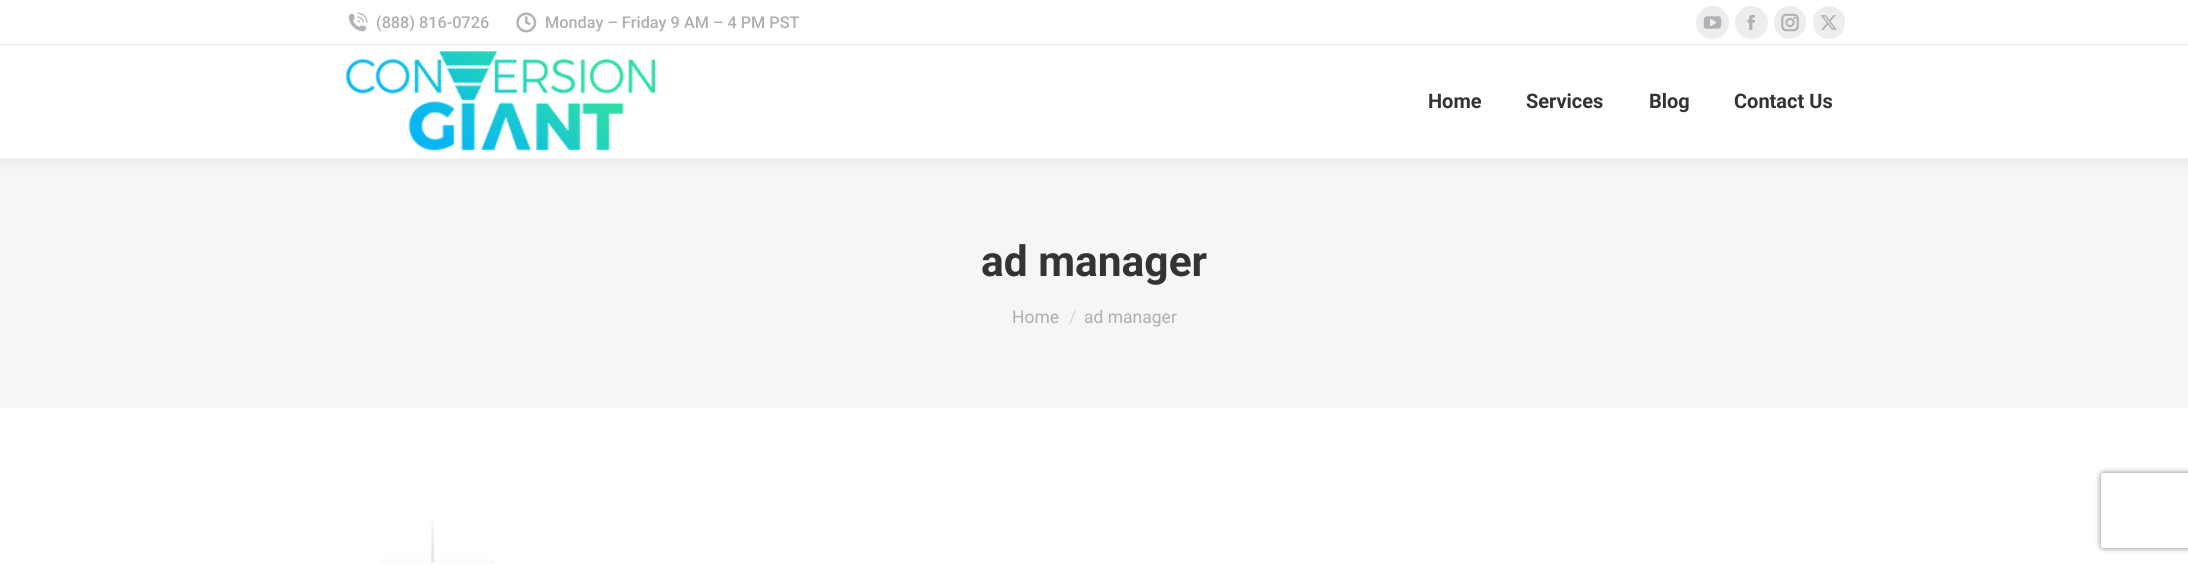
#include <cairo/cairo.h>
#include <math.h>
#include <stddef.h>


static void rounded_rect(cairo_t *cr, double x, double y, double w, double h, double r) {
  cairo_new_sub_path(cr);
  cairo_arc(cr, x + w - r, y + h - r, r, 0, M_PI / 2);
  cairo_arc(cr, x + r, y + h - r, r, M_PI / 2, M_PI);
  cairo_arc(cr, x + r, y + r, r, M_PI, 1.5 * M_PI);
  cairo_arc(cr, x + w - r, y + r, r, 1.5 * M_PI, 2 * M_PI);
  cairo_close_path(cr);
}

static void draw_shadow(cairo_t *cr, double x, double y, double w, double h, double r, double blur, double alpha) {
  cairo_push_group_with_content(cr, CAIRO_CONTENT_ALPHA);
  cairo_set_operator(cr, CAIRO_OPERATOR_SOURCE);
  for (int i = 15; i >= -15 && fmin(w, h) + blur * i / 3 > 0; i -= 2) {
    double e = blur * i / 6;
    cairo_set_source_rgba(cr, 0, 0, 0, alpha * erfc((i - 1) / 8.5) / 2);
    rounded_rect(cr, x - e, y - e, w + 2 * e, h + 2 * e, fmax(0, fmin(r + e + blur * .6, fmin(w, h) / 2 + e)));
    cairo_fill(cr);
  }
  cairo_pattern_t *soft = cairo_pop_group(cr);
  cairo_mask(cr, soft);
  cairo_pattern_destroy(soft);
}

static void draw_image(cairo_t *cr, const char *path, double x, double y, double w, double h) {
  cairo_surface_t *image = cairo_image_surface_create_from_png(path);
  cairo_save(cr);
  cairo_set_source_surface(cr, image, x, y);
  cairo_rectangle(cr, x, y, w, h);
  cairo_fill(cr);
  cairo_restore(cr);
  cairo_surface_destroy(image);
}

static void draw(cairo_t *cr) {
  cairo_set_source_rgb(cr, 1, 1, 1);
  cairo_paint(cr);
  cairo_set_source_rgb(cr, 246 / 255.0, 246 / 255.0, 246 / 255.0);
  cairo_rectangle(cr, 0, 158, 2188, 250);
  cairo_fill(cr);
  cairo_set_source_rgb(cr, 0, 0, 0);
  draw_shadow(cr, -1, -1, 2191, 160, 0, 9.5, 0.07);
  cairo_set_source_rgb(cr, 1, 1, 1);
  cairo_rectangle(cr, 0, 0, 2188, 158);
  cairo_fill(cr);
  draw_image(cr, "images/1.png", 348, 12, 20, 20);
  draw_image(cr, "images/2.png", 516, 12, 21, 21);
  cairo_set_source_rgb(cr, 237 / 255.0, 237 / 255.0, 237 / 255.0);
  cairo_arc(cr, 1712.5, 22.5, 16.5, 0, 2 * M_PI);
  cairo_fill(cr);
  draw_image(cr, "images/3.png", 1703, 16, 19, 13);
  cairo_arc(cr, 1751.5, 22.5, 16.5, 0, 2 * M_PI);
  cairo_fill(cr);
  draw_image(cr, "images/4.png", 1747, 15, 8, 15);
  rounded_rect(cr, 1774, 6, 32, 33, 16);
  cairo_fill(cr);
  draw_image(cr, "images/5.png", 1781, 13, 18, 19);
  rounded_rect(cr, 1813, 6, 32, 33, 16);
  cairo_fill(cr);
  draw_image(cr, "images/6.png", 1820, 15, 17, 15);
  cairo_set_source_rgb(cr, 233 / 255.0, 233 / 255.0, 233 / 255.0);
  cairo_rectangle(cr, 0, 44, 2188, 1);
  cairo_fill(cr);
  draw_image(cr, "images/7.png", 346, 51, 310, 100);
  draw_image(cr, "images/8.png", 381, 518, 114, 46);
  cairo_save(cr);
  cairo_set_fill_rule(cr, CAIRO_FILL_RULE_EVEN_ODD);
  cairo_new_path(cr);
  cairo_move_to(cr, 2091, 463);
  cairo_line_to(cr, 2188, 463);
  cairo_line_to(cr, 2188, 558);
  cairo_line_to(cr, 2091, 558);
  cairo_close_path(cr);
  cairo_move_to(cr, 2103.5, 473);
  cairo_line_to(cr, 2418.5, 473);
  cairo_curve_to(cr, 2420, 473, 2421, 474, 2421, 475.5);
  cairo_line_to(cr, 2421, 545.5);
  cairo_curve_to(cr, 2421, 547, 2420, 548, 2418.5, 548);
  cairo_line_to(cr, 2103.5, 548);
  cairo_curve_to(cr, 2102, 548, 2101, 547, 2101, 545.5);
  cairo_line_to(cr, 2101, 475.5);
  cairo_curve_to(cr, 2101, 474, 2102, 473, 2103.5, 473);
  cairo_close_path(cr);
  cairo_clip(cr);
  cairo_set_source_rgb(cr, 128 / 255.0, 128 / 255.0, 128 / 255.0);
  draw_shadow(cr, 2101, 473, 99, 75, 2.5, 3, 1);
  cairo_restore(cr);
  cairo_select_font_face(cr, "Roboto Medium", CAIRO_FONT_SLANT_NORMAL, CAIRO_FONT_WEIGHT_NORMAL);
  cairo_set_font_size(cr, 16.25);
  cairo_set_source_rgb(cr, 173 / 255.0, 175 / 255.0, 179 / 255.0);
  cairo_move_to(cr, 376, 28);
  cairo_show_text(cr, "(888) 816-0726");
  cairo_move_to(cr, 545, 28);
  cairo_show_text(cr, "Monday – Friday 9 AM – 4 PM PST");
  cairo_select_font_face(cr, "Roboto", CAIRO_FONT_SLANT_NORMAL, CAIRO_FONT_WEIGHT_BOLD);
  cairo_set_font_size(cr, 20);
  cairo_set_source_rgb(cr, 51 / 255.0, 51 / 255.0, 51 / 255.0);
  cairo_move_to(cr, 1428, 108);
  cairo_show_text(cr, "Home");
  cairo_move_to(cr, 1526, 108);
  cairo_show_text(cr, "Services");
  cairo_move_to(cr, 1649, 108);
  cairo_show_text(cr, "Blog");
  cairo_move_to(cr, 1734, 108);
  cairo_show_text(cr, "Contact Us");
  cairo_set_font_size(cr, 42.5);
  cairo_move_to(cr, 981, 276);
  cairo_show_text(cr, "ad manager");
  cairo_select_font_face(cr, "Roboto", CAIRO_FONT_SLANT_NORMAL, CAIRO_FONT_WEIGHT_NORMAL);
  cairo_set_font_size(cr, 17.5);
  cairo_set_source_rgb(cr, 173 / 255.0, 175 / 255.0, 179 / 255.0);
  cairo_move_to(cr, 1012, 323);
  cairo_show_text(cr, "Home");
  cairo_set_source_rgb(cr, 210 / 255.0, 211 / 255.0, 213 / 255.0);
  cairo_move_to(cr, 1069, 323);
  cairo_show_text(cr, "/");
  cairo_set_source_rgb(cr, 173 / 255.0, 175 / 255.0, 179 / 255.0);
  cairo_move_to(cr, 1084, 323);
  cairo_show_text(cr, "ad manager");
}

int main(void) {
  cairo_surface_t *surface = cairo_image_surface_create(CAIRO_FORMAT_RGB24, 2188, 564);
  cairo_t *cr = cairo_create(surface);
  cairo_font_options_t *options = cairo_font_options_create();
  cairo_font_options_set_hint_metrics(options, CAIRO_HINT_METRICS_OFF);
  cairo_font_options_set_hint_style(options, CAIRO_HINT_STYLE_NONE);
  cairo_set_font_options(cr, options);
  cairo_set_miter_limit(cr, 4);
  draw(cr);
  cairo_surface_write_to_png(surface, "out.png");
  cairo_font_options_destroy(options);
  cairo_destroy(cr);
  cairo_surface_destroy(surface);
  return 0;
}
